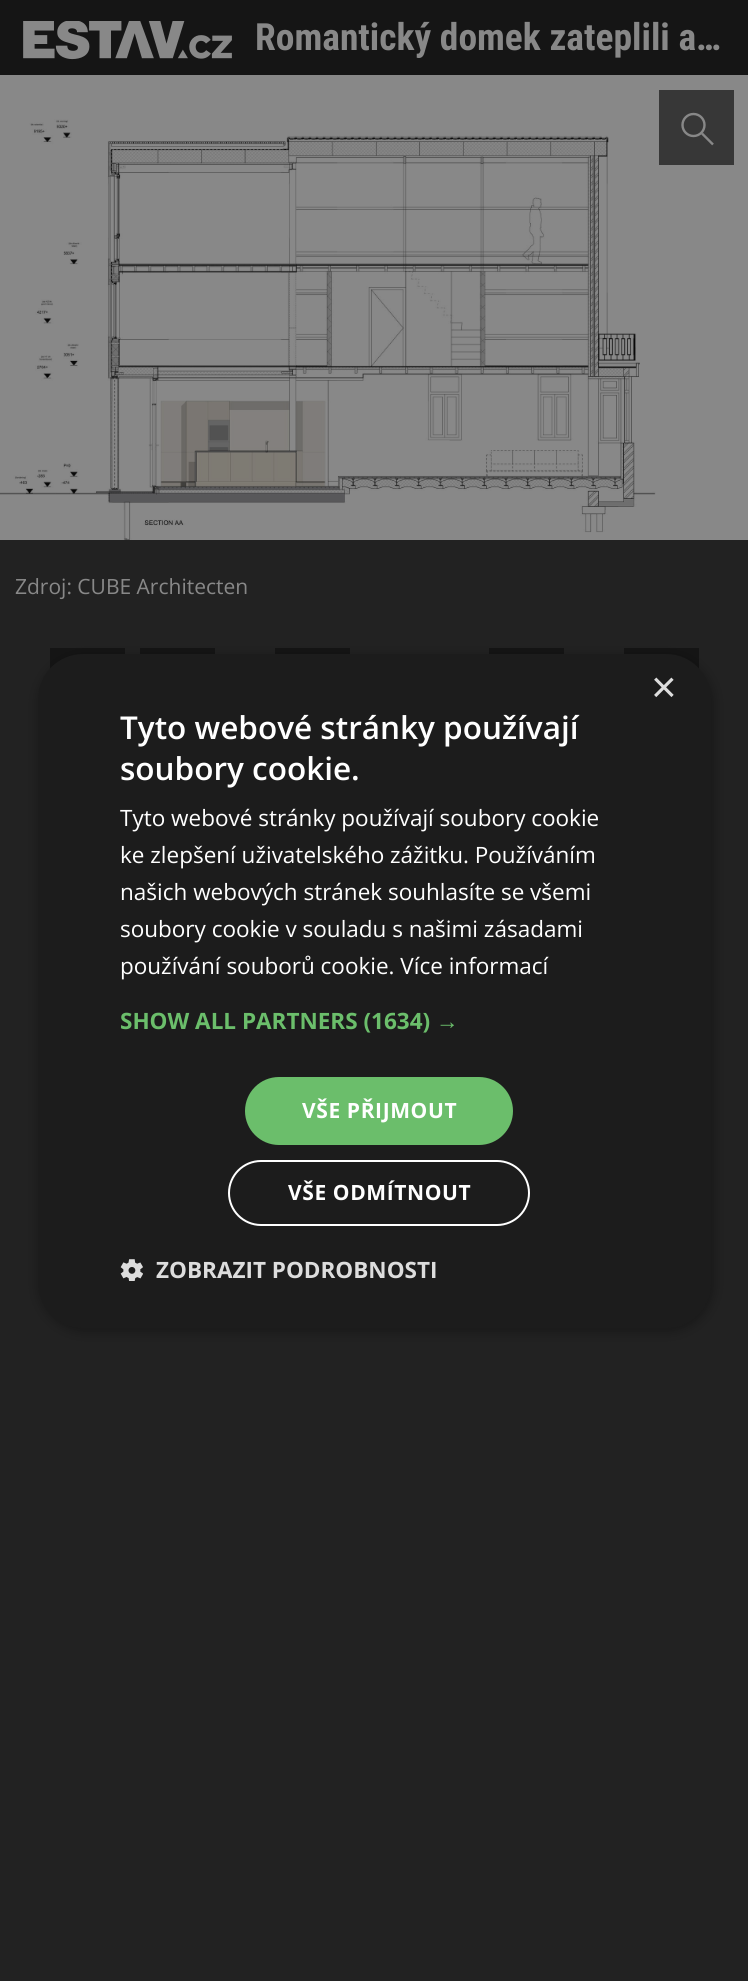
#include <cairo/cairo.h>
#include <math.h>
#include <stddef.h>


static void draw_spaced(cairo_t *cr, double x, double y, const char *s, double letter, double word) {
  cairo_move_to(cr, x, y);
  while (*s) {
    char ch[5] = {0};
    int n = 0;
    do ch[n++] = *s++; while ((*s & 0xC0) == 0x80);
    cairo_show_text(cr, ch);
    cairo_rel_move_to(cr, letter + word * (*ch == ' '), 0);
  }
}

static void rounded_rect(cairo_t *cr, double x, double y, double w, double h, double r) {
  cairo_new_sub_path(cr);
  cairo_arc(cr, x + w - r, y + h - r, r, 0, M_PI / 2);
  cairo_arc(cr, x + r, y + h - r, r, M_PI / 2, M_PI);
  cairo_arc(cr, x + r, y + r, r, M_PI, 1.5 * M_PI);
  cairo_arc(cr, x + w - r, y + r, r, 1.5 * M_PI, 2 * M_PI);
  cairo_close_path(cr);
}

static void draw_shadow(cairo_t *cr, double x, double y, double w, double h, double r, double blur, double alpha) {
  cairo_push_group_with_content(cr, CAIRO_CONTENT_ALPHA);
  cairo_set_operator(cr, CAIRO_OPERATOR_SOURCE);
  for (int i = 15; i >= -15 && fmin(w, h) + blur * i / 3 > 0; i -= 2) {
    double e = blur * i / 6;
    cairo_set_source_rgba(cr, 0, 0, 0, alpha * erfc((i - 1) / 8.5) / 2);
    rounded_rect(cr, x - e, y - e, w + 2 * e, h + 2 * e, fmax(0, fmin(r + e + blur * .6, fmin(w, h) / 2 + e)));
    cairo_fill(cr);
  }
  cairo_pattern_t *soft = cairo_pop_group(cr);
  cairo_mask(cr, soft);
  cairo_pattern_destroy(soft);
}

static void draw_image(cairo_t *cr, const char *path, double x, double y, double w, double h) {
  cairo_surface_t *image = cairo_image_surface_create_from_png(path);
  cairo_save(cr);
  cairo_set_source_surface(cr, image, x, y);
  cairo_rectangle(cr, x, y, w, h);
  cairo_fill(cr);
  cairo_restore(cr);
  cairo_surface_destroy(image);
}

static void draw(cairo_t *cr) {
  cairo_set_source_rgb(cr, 34 / 255.0, 34 / 255.0, 34 / 255.0);
  cairo_paint(cr);
  cairo_set_source_rgb(cr, 21 / 255.0, 21 / 255.0, 21 / 255.0);
  cairo_rectangle(cr, 0, 0, 748, 75);
  cairo_fill(cr);
  draw_image(cr, "images/1.png", 23, 21, 209, 39);
  draw_image(cr, "images/2.png", 0, 75, 748, 465);
  cairo_set_source_rgb(cr, 55 / 255.0, 55 / 255.0, 55 / 255.0);
  cairo_rectangle(cr, 659, 90, 75, 75);
  cairo_fill(cr);
  cairo_arc(cr, 693.5, 125, 11, 0, 2 * M_PI);
  cairo_set_source_rgb(cr, 136 / 255.0, 136 / 255.0, 136 / 255.0);
  cairo_set_line_width(cr, 2.4);
  cairo_stroke(cr);
  cairo_new_path(cr);
  cairo_move_to(cr, 702, 133.5);
  cairo_line_to(cr, 713, 144.5);
  cairo_stroke(cr);
  cairo_set_source_rgb(cr, 21 / 255.0, 21 / 255.0, 21 / 255.0);
  cairo_rectangle(cr, 50, 648, 75, 21);
  cairo_fill(cr);
  cairo_rectangle(cr, 140, 648, 75, 6);
  cairo_fill(cr);
  cairo_rectangle(cr, 275, 648, 75, 6);
  cairo_fill(cr);
  cairo_rectangle(cr, 489, 648, 75, 6);
  cairo_fill(cr);
  cairo_rectangle(cr, 624, 648, 75, 21);
  cairo_fill(cr);
  cairo_set_source_rgb(cr, 0, 0, 0);
  draw_shadow(cr, 39, 657, 674, 674, 45, 6, 0.35);
  cairo_set_source_rgb(cr, 28 / 255.0, 28 / 255.0, 28 / 255.0);
  rounded_rect(cr, 38, 654, 673, 674, 45);
  cairo_fill(cr);
  cairo_set_source_rgb(cr, 107 / 255.0, 190 / 255.0, 107 / 255.0);
  rounded_rect(cr, 245, 1077, 268, 68, 34);
  cairo_fill(cr);
  rounded_rect(cr, 229, 1161, 300, 64, 32);
  cairo_set_source_rgb(cr, 1, 1, 1);
  cairo_set_line_width(cr, 2);
  cairo_stroke(cr);
  draw_image(cr, "images/3.png", 120, 1259, 23, 22);
  cairo_select_font_face(cr, "Roboto Condensed", CAIRO_FONT_SLANT_NORMAL, CAIRO_FONT_WEIGHT_BOLD);
  cairo_set_font_size(cr, 37.5);
  cairo_set_source_rgb(cr, 136 / 255.0, 136 / 255.0, 136 / 255.0);
  cairo_move_to(cr, 255, 50);
  cairo_show_text(cr, "Romantický domek zateplili a…");
  cairo_select_font_face(cr, "Open Sans", CAIRO_FONT_SLANT_NORMAL, CAIRO_FONT_WEIGHT_NORMAL);
  cairo_set_font_size(cr, 21);
  cairo_move_to(cr, 15, 594);
  cairo_show_text(cr, "Zdroj: CUBE Architecten");
  cairo_select_font_face(cr, "Liberation Sans", CAIRO_FONT_SLANT_NORMAL, CAIRO_FONT_WEIGHT_NORMAL);
  cairo_set_font_size(cr, 44);
  cairo_set_source_rgb(cr, 221 / 255.0, 221 / 255.0, 221 / 255.0);
  cairo_move_to(cr, 651, 702);
  cairo_show_text(cr, "×");
  cairo_select_font_face(cr, "Open Sans SemiBold", CAIRO_FONT_SLANT_NORMAL, CAIRO_FONT_WEIGHT_NORMAL);
  cairo_set_font_size(cr, 31.5);
  cairo_set_source_rgb(cr, 1, 1, 1);
  cairo_move_to(cr, 120, 739);
  cairo_show_text(cr, "Tyto webové stránky používají");
  cairo_move_to(cr, 120, 780);
  cairo_show_text(cr, "soubory cookie.");
  cairo_select_font_face(cr, "Open Sans", CAIRO_FONT_SLANT_NORMAL, CAIRO_FONT_WEIGHT_NORMAL);
  cairo_set_font_size(cr, 22.5);
  cairo_move_to(cr, 120, 826);
  cairo_show_text(cr, "Tyto webové stránky používají soubory cookie");
  cairo_move_to(cr, 120, 863);
  cairo_show_text(cr, "ke zlepšení uživatelského zážitku. Používáním");
  cairo_move_to(cr, 120, 900);
  cairo_show_text(cr, "našich webových stránek souhlasíte se všemi");
  cairo_move_to(cr, 120, 937);
  cairo_show_text(cr, "soubory cookie v souladu s našimi zásadami");
  cairo_move_to(cr, 120, 974);
  cairo_show_text(cr, "používání souborů cookie. Více informací");
  cairo_select_font_face(cr, "Open Sans", CAIRO_FONT_SLANT_NORMAL, CAIRO_FONT_WEIGHT_BOLD);
  cairo_set_source_rgb(cr, 107 / 255.0, 190 / 255.0, 107 / 255.0);
  cairo_move_to(cr, 120, 1029);
  cairo_show_text(cr, "SHOW ALL PARTNERS (1634)");
  cairo_select_font_face(cr, "Liberation Sans", CAIRO_FONT_SLANT_NORMAL, CAIRO_FONT_WEIGHT_BOLD);
  cairo_move_to(cr, 436, 1029);
  cairo_show_text(cr, "→");
  cairo_select_font_face(cr, "Open Sans", CAIRO_FONT_SLANT_NORMAL, CAIRO_FONT_WEIGHT_BOLD);
  cairo_set_font_size(cr, 21);
  cairo_set_source_rgb(cr, 1, 1, 1);
  draw_spaced(cr, 302, 1118, "VŠE PŘIJMOUT", 0.6, 0);
  draw_spaced(cr, 288, 1200, "VŠE ODMÍTNOUT", 0.6, 0);
  cairo_set_font_size(cr, 22.5);
  cairo_set_source_rgb(cr, 221 / 255.0, 221 / 255.0, 221 / 255.0);
  cairo_move_to(cr, 156, 1278);
  cairo_show_text(cr, "ZOBRAZIT PODROBNOSTI");
}

int main(void) {
  cairo_surface_t *surface = cairo_image_surface_create(CAIRO_FORMAT_RGB24, 748, 1981);
  cairo_t *cr = cairo_create(surface);
  cairo_font_options_t *options = cairo_font_options_create();
  cairo_font_options_set_hint_metrics(options, CAIRO_HINT_METRICS_OFF);
  cairo_font_options_set_hint_style(options, CAIRO_HINT_STYLE_NONE);
  cairo_set_font_options(cr, options);
  cairo_set_miter_limit(cr, 4);
  draw(cr);
  cairo_surface_write_to_png(surface, "out.png");
  cairo_font_options_destroy(options);
  cairo_destroy(cr);
  cairo_surface_destroy(surface);
  return 0;
}
